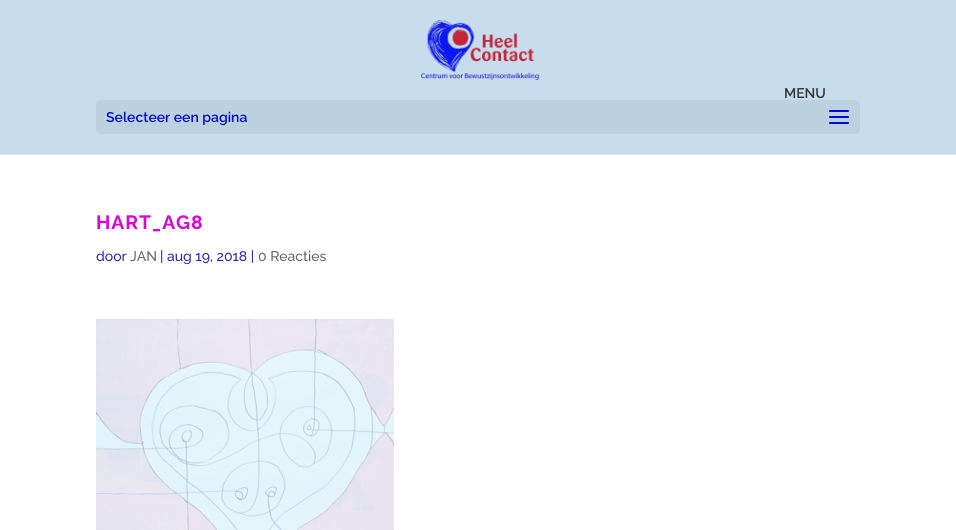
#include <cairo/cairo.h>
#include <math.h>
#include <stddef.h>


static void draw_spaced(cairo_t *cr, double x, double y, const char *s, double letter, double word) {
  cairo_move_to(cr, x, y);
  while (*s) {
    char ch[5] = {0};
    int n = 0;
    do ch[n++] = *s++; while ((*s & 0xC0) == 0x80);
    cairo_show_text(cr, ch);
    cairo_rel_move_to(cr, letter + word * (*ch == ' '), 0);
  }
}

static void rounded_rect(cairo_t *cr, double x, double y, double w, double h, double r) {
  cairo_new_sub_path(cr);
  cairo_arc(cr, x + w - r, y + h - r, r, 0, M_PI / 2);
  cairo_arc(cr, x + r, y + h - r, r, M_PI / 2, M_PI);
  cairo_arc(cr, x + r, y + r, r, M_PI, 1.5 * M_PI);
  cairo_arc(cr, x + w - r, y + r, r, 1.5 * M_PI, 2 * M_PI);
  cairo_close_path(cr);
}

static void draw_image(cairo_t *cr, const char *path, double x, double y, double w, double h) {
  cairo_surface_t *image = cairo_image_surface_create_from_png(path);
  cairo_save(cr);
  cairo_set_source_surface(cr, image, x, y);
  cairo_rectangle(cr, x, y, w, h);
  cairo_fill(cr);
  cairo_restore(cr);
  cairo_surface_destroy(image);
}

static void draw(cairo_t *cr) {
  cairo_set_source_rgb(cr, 1, 1, 1);
  cairo_paint(cr);
  cairo_set_source_rgb(cr, 230 / 255.0, 230 / 255.0, 230 / 255.0);
  cairo_rectangle(cr, 0, 154, 956, 1);
  cairo_fill(cr);
  cairo_set_source_rgb(cr, 199 / 255.0, 221 / 255.0, 237 / 255.0);
  cairo_rectangle(cr, 0, 0, 956, 154);
  cairo_fill(cr);
  draw_image(cr, "images/1.png", 421, 20, 119, 60);
  cairo_set_source_rgb(cr, 189 / 255.0, 210 / 255.0, 225 / 255.0);
  rounded_rect(cr, 96, 100, 764, 34, 5);
  cairo_fill(cr);
  draw_image(cr, "images/2.png", 829, 110, 20, 14);
  draw_image(cr, "images/3.png", 96, 319, 298, 211);
  cairo_select_font_face(cr, "Raleway SemiBold", CAIRO_FONT_SLANT_NORMAL, CAIRO_FONT_WEIGHT_NORMAL);
  cairo_set_font_size(cr, 14);
  cairo_set_source_rgb(cr, 54 / 255.0, 54 / 255.0, 51 / 255.0);
  cairo_move_to(cr, 784, 98);
  cairo_show_text(cr, "MENU");
  cairo_set_source_rgb(cr, 0, 10 / 255.0, 219 / 255.0);
  cairo_move_to(cr, 106, 122);
  cairo_show_text(cr, "Selecteer een pagina");
  cairo_select_font_face(cr, "Raleway", CAIRO_FONT_SLANT_NORMAL, CAIRO_FONT_WEIGHT_BOLD);
  cairo_set_font_size(cr, 19.25);
  cairo_set_source_rgb(cr, 219 / 255.0, 2 / 255.0, 215 / 255.0);
  draw_spaced(cr, 96, 229, "HART_AG8", 1, 0);
  cairo_select_font_face(cr, "Raleway Medium", CAIRO_FONT_SLANT_NORMAL, CAIRO_FONT_WEIGHT_NORMAL);
  cairo_set_font_size(cr, 14);
  cairo_set_source_rgb(cr, 43 / 255.0, 38 / 255.0, 191 / 255.0);
  cairo_move_to(cr, 96, 261);
  cairo_show_text(cr, "door");
  cairo_set_source_rgb(cr, 102 / 255.0, 102 / 255.0, 102 / 255.0);
  cairo_move_to(cr, 130, 261);
  cairo_show_text(cr, "JAN");
  cairo_set_source_rgb(cr, 43 / 255.0, 38 / 255.0, 191 / 255.0);
  cairo_move_to(cr, 160, 261);
  cairo_show_text(cr, "| aug 19, 2018 |");
  cairo_set_source_rgb(cr, 102 / 255.0, 102 / 255.0, 102 / 255.0);
  cairo_move_to(cr, 258, 261);
  cairo_show_text(cr, "0 Reacties");
}

int main(void) {
  cairo_surface_t *surface = cairo_image_surface_create(CAIRO_FORMAT_RGB24, 956, 530);
  cairo_t *cr = cairo_create(surface);
  cairo_font_options_t *options = cairo_font_options_create();
  cairo_font_options_set_hint_metrics(options, CAIRO_HINT_METRICS_OFF);
  cairo_font_options_set_hint_style(options, CAIRO_HINT_STYLE_NONE);
  cairo_set_font_options(cr, options);
  cairo_set_miter_limit(cr, 4);
  draw(cr);
  cairo_surface_write_to_png(surface, "out.png");
  cairo_font_options_destroy(options);
  cairo_destroy(cr);
  cairo_surface_destroy(surface);
  return 0;
}
